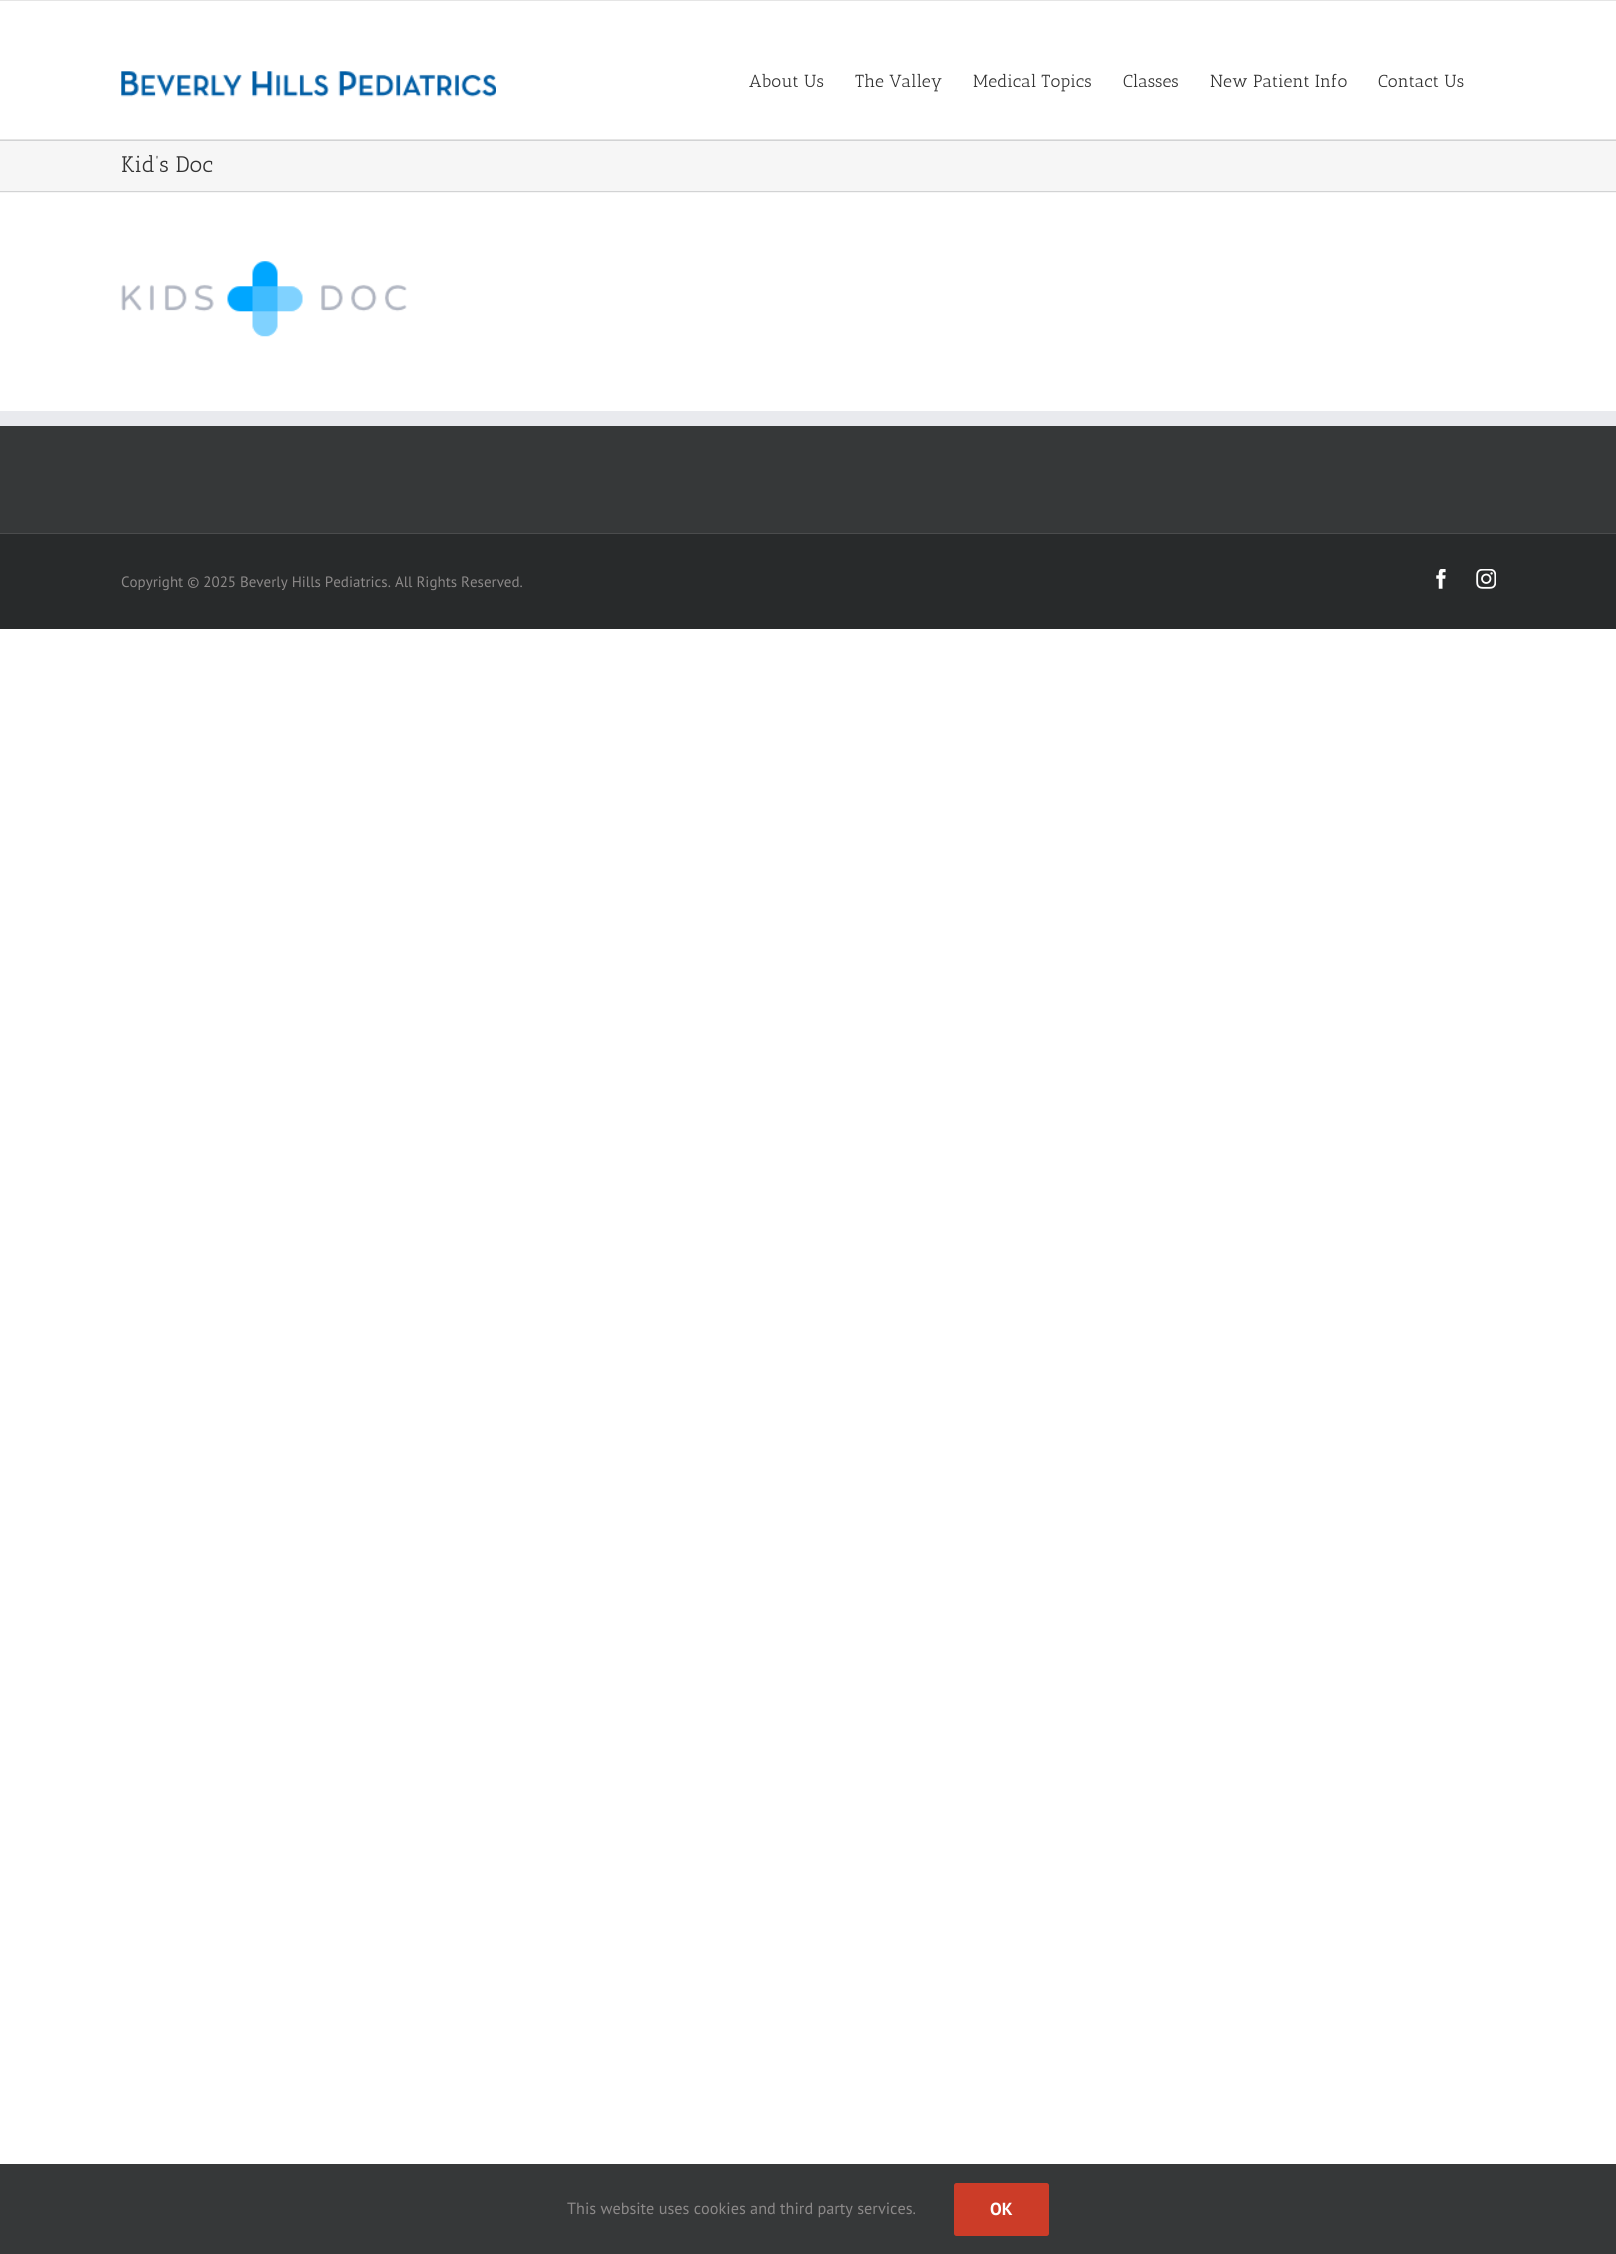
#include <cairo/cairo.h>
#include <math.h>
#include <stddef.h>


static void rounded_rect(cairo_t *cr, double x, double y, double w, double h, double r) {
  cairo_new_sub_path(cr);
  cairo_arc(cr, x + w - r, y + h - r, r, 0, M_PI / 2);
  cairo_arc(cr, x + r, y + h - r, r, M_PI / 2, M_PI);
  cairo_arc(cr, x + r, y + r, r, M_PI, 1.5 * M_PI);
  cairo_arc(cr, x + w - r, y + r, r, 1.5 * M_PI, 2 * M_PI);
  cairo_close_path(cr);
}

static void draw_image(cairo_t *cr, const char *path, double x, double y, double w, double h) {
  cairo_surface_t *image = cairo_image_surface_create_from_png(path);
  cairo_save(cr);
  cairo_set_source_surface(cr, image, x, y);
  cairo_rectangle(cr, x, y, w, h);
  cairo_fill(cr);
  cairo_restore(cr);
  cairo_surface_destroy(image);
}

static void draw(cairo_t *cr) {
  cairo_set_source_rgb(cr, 1, 1, 1);
  cairo_paint(cr);
  cairo_set_source_rgb(cr, 229 / 255.0, 229 / 255.0, 229 / 255.0);
  cairo_rectangle(cr, 0, 0, 1616, 1);
  cairo_fill(cr);
  cairo_rectangle(cr, 0, 139, 1616, 1);
  cairo_fill(cr);
  draw_image(cr, "images/1.png", 121, 71, 375, 26);
  cairo_set_source_rgb(cr, 246 / 255.0, 246 / 255.0, 246 / 255.0);
  cairo_rectangle(cr, 0, 141, 1616, 52);
  cairo_fill(cr);
  cairo_set_source_rgb(cr, 210 / 255.0, 211 / 255.0, 212 / 255.0);
  cairo_rectangle(cr, 0, 140, 1616, 1);
  cairo_fill(cr);
  cairo_rectangle(cr, 0, 191, 1616, 1);
  cairo_fill(cr);
  draw_image(cr, "images/2.png", 121, 261, 286, 76);
  cairo_set_source_rgb(cr, 54 / 255.0, 56 / 255.0, 57 / 255.0);
  cairo_rectangle(cr, 0, 426, 1616, 107);
  cairo_fill(cr);
  cairo_set_source_rgb(cr, 233 / 255.0, 234 / 255.0, 238 / 255.0);
  cairo_rectangle(cr, 0, 411, 1616, 15);
  cairo_fill(cr);
  cairo_set_source_rgb(cr, 40 / 255.0, 42 / 255.0, 43 / 255.0);
  cairo_rectangle(cr, 0, 534, 1616, 95);
  cairo_fill(cr);
  cairo_set_source_rgb(cr, 75 / 255.0, 76 / 255.0, 77 / 255.0);
  cairo_rectangle(cr, 0, 533, 1616, 1);
  cairo_fill(cr);
  draw_image(cr, "images/3.png", 1436, 569, 10, 20);
  draw_image(cr, "images/4.png", 1476, 569, 20, 20);
  cairo_set_source_rgb(cr, 54 / 255.0, 56 / 255.0, 57 / 255.0);
  cairo_rectangle(cr, 0, 2164, 1616, 90);
  cairo_fill(cr);
  cairo_set_source_rgb(cr, 204 / 255.0, 60 / 255.0, 40 / 255.0);
  rounded_rect(cr, 954, 2183, 95, 53, 2.5);
  cairo_fill(cr);
  cairo_select_font_face(cr, "Antic Slab", CAIRO_FONT_SLANT_NORMAL, CAIRO_FONT_WEIGHT_NORMAL);
  cairo_set_font_size(cr, 17.5);
  cairo_set_source_rgb(cr, 51 / 255.0, 51 / 255.0, 51 / 255.0);
  cairo_move_to(cr, 749, 87);
  cairo_show_text(cr, "About Us");
  cairo_move_to(cr, 855, 87);
  cairo_show_text(cr, "The Valley");
  cairo_move_to(cr, 973, 87);
  cairo_show_text(cr, "Medical Topics");
  cairo_move_to(cr, 1123, 87);
  cairo_show_text(cr, "Classes");
  cairo_move_to(cr, 1210, 87);
  cairo_show_text(cr, "New Patient Info");
  cairo_move_to(cr, 1378, 87);
  cairo_show_text(cr, "Contact Us");
  cairo_set_font_size(cr, 22.5);
  cairo_move_to(cr, 121, 172);
  cairo_show_text(cr, "Kid’s Doc");
  cairo_select_font_face(cr, "PT Sans", CAIRO_FONT_SLANT_NORMAL, CAIRO_FONT_WEIGHT_NORMAL);
  cairo_set_font_size(cr, 15);
  cairo_set_source_rgb(cr, 140 / 255.0, 137 / 255.0, 137 / 255.0);
  cairo_move_to(cr, 121, 587);
  cairo_show_text(cr, "Copyright © 2025 Beverly Hills Pediatrics. All Rights Reserved.");
  cairo_set_font_size(cr, 16.25);
  cairo_move_to(cr, 567, 2214);
  cairo_show_text(cr, "This website uses cookies and third party services.");
  cairo_select_font_face(cr, "PT Sans", CAIRO_FONT_SLANT_NORMAL, CAIRO_FONT_WEIGHT_BOLD);
  cairo_set_font_size(cr, 17.5);
  cairo_set_source_rgb(cr, 1, 1, 1);
  cairo_move_to(cr, 990, 2215);
  cairo_show_text(cr, "OK");
}

int main(void) {
  cairo_surface_t *surface = cairo_image_surface_create(CAIRO_FORMAT_RGB24, 1616, 2254);
  cairo_t *cr = cairo_create(surface);
  cairo_font_options_t *options = cairo_font_options_create();
  cairo_font_options_set_hint_metrics(options, CAIRO_HINT_METRICS_OFF);
  cairo_font_options_set_hint_style(options, CAIRO_HINT_STYLE_NONE);
  cairo_set_font_options(cr, options);
  cairo_set_miter_limit(cr, 4);
  draw(cr);
  cairo_surface_write_to_png(surface, "out.png");
  cairo_font_options_destroy(options);
  cairo_destroy(cr);
  cairo_surface_destroy(surface);
  return 0;
}
